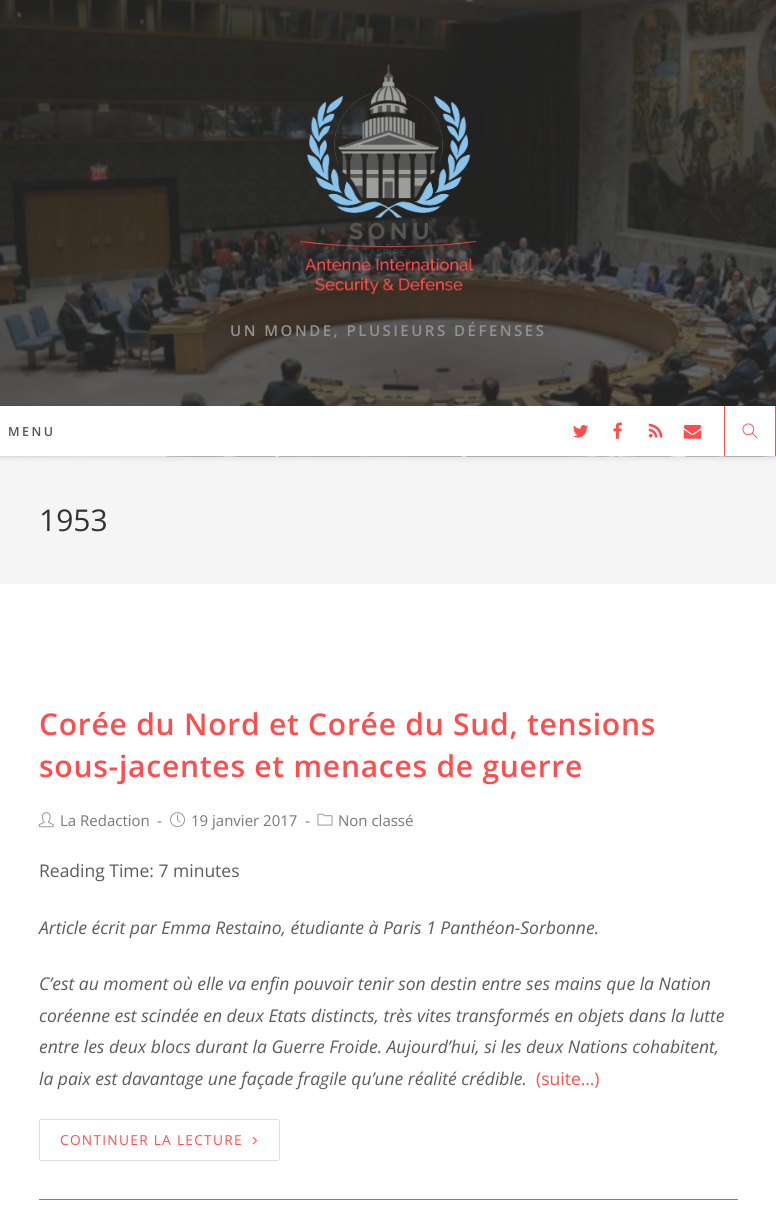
#include <cairo/cairo.h>
#include <math.h>
#include <stddef.h>


static void draw_spaced(cairo_t *cr, double x, double y, const char *s, double letter, double word) {
  cairo_move_to(cr, x, y);
  while (*s) {
    char ch[5] = {0};
    int n = 0;
    do ch[n++] = *s++; while ((*s & 0xC0) == 0x80);
    cairo_show_text(cr, ch);
    cairo_rel_move_to(cr, letter + word * (*ch == ' '), 0);
  }
}

static void rounded_rect(cairo_t *cr, double x, double y, double w, double h, double r) {
  cairo_new_sub_path(cr);
  cairo_arc(cr, x + w - r, y + h - r, r, 0, M_PI / 2);
  cairo_arc(cr, x + r, y + h - r, r, M_PI / 2, M_PI);
  cairo_arc(cr, x + r, y + r, r, M_PI, 1.5 * M_PI);
  cairo_arc(cr, x + w - r, y + r, r, 1.5 * M_PI, 2 * M_PI);
  cairo_close_path(cr);
}

static void draw_shadow(cairo_t *cr, double x, double y, double w, double h, double r, double blur, double alpha) {
  cairo_push_group_with_content(cr, CAIRO_CONTENT_ALPHA);
  cairo_set_operator(cr, CAIRO_OPERATOR_SOURCE);
  for (int i = 15; i >= -15 && fmin(w, h) + blur * i / 3 > 0; i -= 2) {
    double e = blur * i / 6;
    cairo_set_source_rgba(cr, 0, 0, 0, alpha * erfc((i - 1) / 8.5) / 2);
    rounded_rect(cr, x - e, y - e, w + 2 * e, h + 2 * e, fmax(0, fmin(r + e + blur * .6, fmin(w, h) / 2 + e)));
    cairo_fill(cr);
  }
  cairo_pattern_t *soft = cairo_pop_group(cr);
  cairo_mask(cr, soft);
  cairo_pattern_destroy(soft);
}

static void draw_image(cairo_t *cr, const char *path, double x, double y, double w, double h) {
  cairo_surface_t *image = cairo_image_surface_create_from_png(path);
  cairo_save(cr);
  cairo_set_source_surface(cr, image, x, y);
  cairo_rectangle(cr, x, y, w, h);
  cairo_fill(cr);
  cairo_restore(cr);
  cairo_surface_destroy(image);
}

static void draw(cairo_t *cr) {
  cairo_set_source_rgb(cr, 1, 1, 1);
  cairo_paint(cr);
  cairo_set_source_rgb(cr, 245 / 255.0, 245 / 255.0, 245 / 255.0);
  cairo_rectangle(cr, 0, 456, 776, 128);
  cairo_fill(cr);
  draw_image(cr, "images/1.png", 0, 0, 776, 457);
  draw_image(cr, "images/2.png", 300, 64, 177, 230);
  cairo_set_source_rgb(cr, 0, 0, 0);
  draw_shadow(cr, 0, 408, 776, 50, 0, 3, 0.1);
  cairo_set_source_rgb(cr, 1, 1, 1);
  cairo_rectangle(cr, 0, 406, 775, 50);
  cairo_fill(cr);
  draw_image(cr, "images/3.png", 573, 425, 16, 13);
  draw_image(cr, "images/4.png", 613, 422, 9, 17);
  draw_image(cr, "images/5.png", 648, 423, 15, 15);
  draw_image(cr, "images/6.png", 683, 425, 19, 14);
  cairo_set_source_rgb(cr, 1, 77 / 255.0, 77 / 255.0);
  cairo_rectangle(cr, 775, 406, 1, 50);
  cairo_fill(cr);
  cairo_rectangle(cr, 724, 406, 1, 50);
  cairo_fill(cr);
  draw_image(cr, "images/7.png", 742, 423, 16, 16);
  cairo_rectangle(cr, 39, 1199, 699, 1);
  cairo_fill(cr);
  draw_image(cr, "images/8.png", 38, 812, 16, 16);
  draw_image(cr, "images/9.png", 170, 812, 15, 16);
  draw_image(cr, "images/10.png", 317, 813, 16, 13);
  rounded_rect(cr, 39.5, 1119.5, 240, 41, 2);
  cairo_set_source_rgb(cr, 221 / 255.0, 221 / 255.0, 221 / 255.0);
  cairo_set_line_width(cr, 1);
  cairo_stroke(cr);
  draw_image(cr, "images/11.png", 252, 1136, 5, 9);
  cairo_select_font_face(cr, "Open Sans SemiBold", CAIRO_FONT_SLANT_NORMAL, CAIRO_FONT_WEIGHT_NORMAL);
  cairo_set_font_size(cr, 15);
  cairo_set_source_rgb(cr, 146 / 255.0, 146 / 255.0, 146 / 255.0);
  draw_spaced(cr, 230, 336, "UN MONDE, PLUSIEURS DÉFENSES", 2.5, 0);
  cairo_set_font_size(cr, 12.5);
  cairo_set_source_rgb(cr, 85 / 255.0, 85 / 255.0, 85 / 255.0);
  draw_spaced(cr, 8, 436, "MENU", 2.5, 0);
  cairo_select_font_face(cr, "Open Sans", CAIRO_FONT_SLANT_NORMAL, CAIRO_FONT_WEIGHT_NORMAL);
  cairo_set_font_size(cr, 30);
  cairo_set_source_rgb(cr, 51 / 255.0, 51 / 255.0, 51 / 255.0);
  cairo_move_to(cr, 39, 531);
  cairo_show_text(cr, "1953");
  cairo_select_font_face(cr, "Open Sans SemiBold", CAIRO_FONT_SLANT_NORMAL, CAIRO_FONT_WEIGHT_NORMAL);
  cairo_set_source_rgb(cr, 1, 77 / 255.0, 77 / 255.0);
  draw_spaced(cr, 39, 735, "Corée du Nord et Corée du Sud, tensions", 0.75, 0);
  draw_spaced(cr, 39, 777, "sous-jacentes et menaces de guerre", 0.75, 0);
  cairo_select_font_face(cr, "Open Sans", CAIRO_FONT_SLANT_NORMAL, CAIRO_FONT_WEIGHT_NORMAL);
  cairo_set_font_size(cr, 15);
  cairo_set_source_rgb(cr, 119 / 255.0, 119 / 255.0, 119 / 255.0);
  cairo_move_to(cr, 60, 826);
  cairo_show_text(cr, "La Redaction");
  cairo_move_to(cr, 157, 826);
  cairo_show_text(cr, "-");
  cairo_move_to(cr, 191, 826);
  cairo_show_text(cr, "19 janvier 2017");
  cairo_move_to(cr, 305, 826);
  cairo_show_text(cr, "-");
  cairo_move_to(cr, 338, 826);
  cairo_show_text(cr, "Non classé");
  cairo_set_font_size(cr, 17.5);
  cairo_set_source_rgb(cr, 91 / 255.0, 91 / 255.0, 91 / 255.0);
  cairo_move_to(cr, 39, 877);
  cairo_show_text(cr, "Reading Time: 7 minutes");
  cairo_select_font_face(cr, "Open Sans", CAIRO_FONT_SLANT_ITALIC, CAIRO_FONT_WEIGHT_NORMAL);
  cairo_move_to(cr, 39, 934);
  cairo_show_text(cr, "Article écrit par Emma Restaino, étudiante à Paris 1 Panthéon-Sorbonne.");
  cairo_move_to(cr, 39, 990);
  cairo_show_text(cr, "C’est au moment où elle va enfin pouvoir tenir son destin entre ses mains que la Nation");
  cairo_move_to(cr, 39, 1022);
  cairo_show_text(cr, "coréenne est scindée en deux Etats distincts, très vites transformés en objets dans la lutte");
  cairo_move_to(cr, 39, 1053);
  cairo_show_text(cr, "entre les deux blocs durant la Guerre Froide. Aujourd’hui, si les deux Nations cohabitent,");
  cairo_move_to(cr, 39, 1085);
  cairo_show_text(cr, "la paix est davantage une façade fragile qu’une réalité crédible.");
  cairo_select_font_face(cr, "Open Sans", CAIRO_FONT_SLANT_NORMAL, CAIRO_FONT_WEIGHT_NORMAL);
  cairo_set_source_rgb(cr, 1, 77 / 255.0, 77 / 255.0);
  cairo_move_to(cr, 536, 1085);
  cairo_show_text(cr, "(suite…)");
  cairo_set_font_size(cr, 13.75);
  draw_spaced(cr, 60, 1145, "CONTINUER LA LECTURE", 1.25, 0);
}

int main(void) {
  cairo_surface_t *surface = cairo_image_surface_create(CAIRO_FORMAT_RGB24, 776, 1232);
  cairo_t *cr = cairo_create(surface);
  cairo_font_options_t *options = cairo_font_options_create();
  cairo_font_options_set_hint_metrics(options, CAIRO_HINT_METRICS_OFF);
  cairo_font_options_set_hint_style(options, CAIRO_HINT_STYLE_NONE);
  cairo_set_font_options(cr, options);
  cairo_set_miter_limit(cr, 4);
  draw(cr);
  cairo_surface_write_to_png(surface, "out.png");
  cairo_font_options_destroy(options);
  cairo_destroy(cr);
  cairo_surface_destroy(surface);
  return 0;
}
